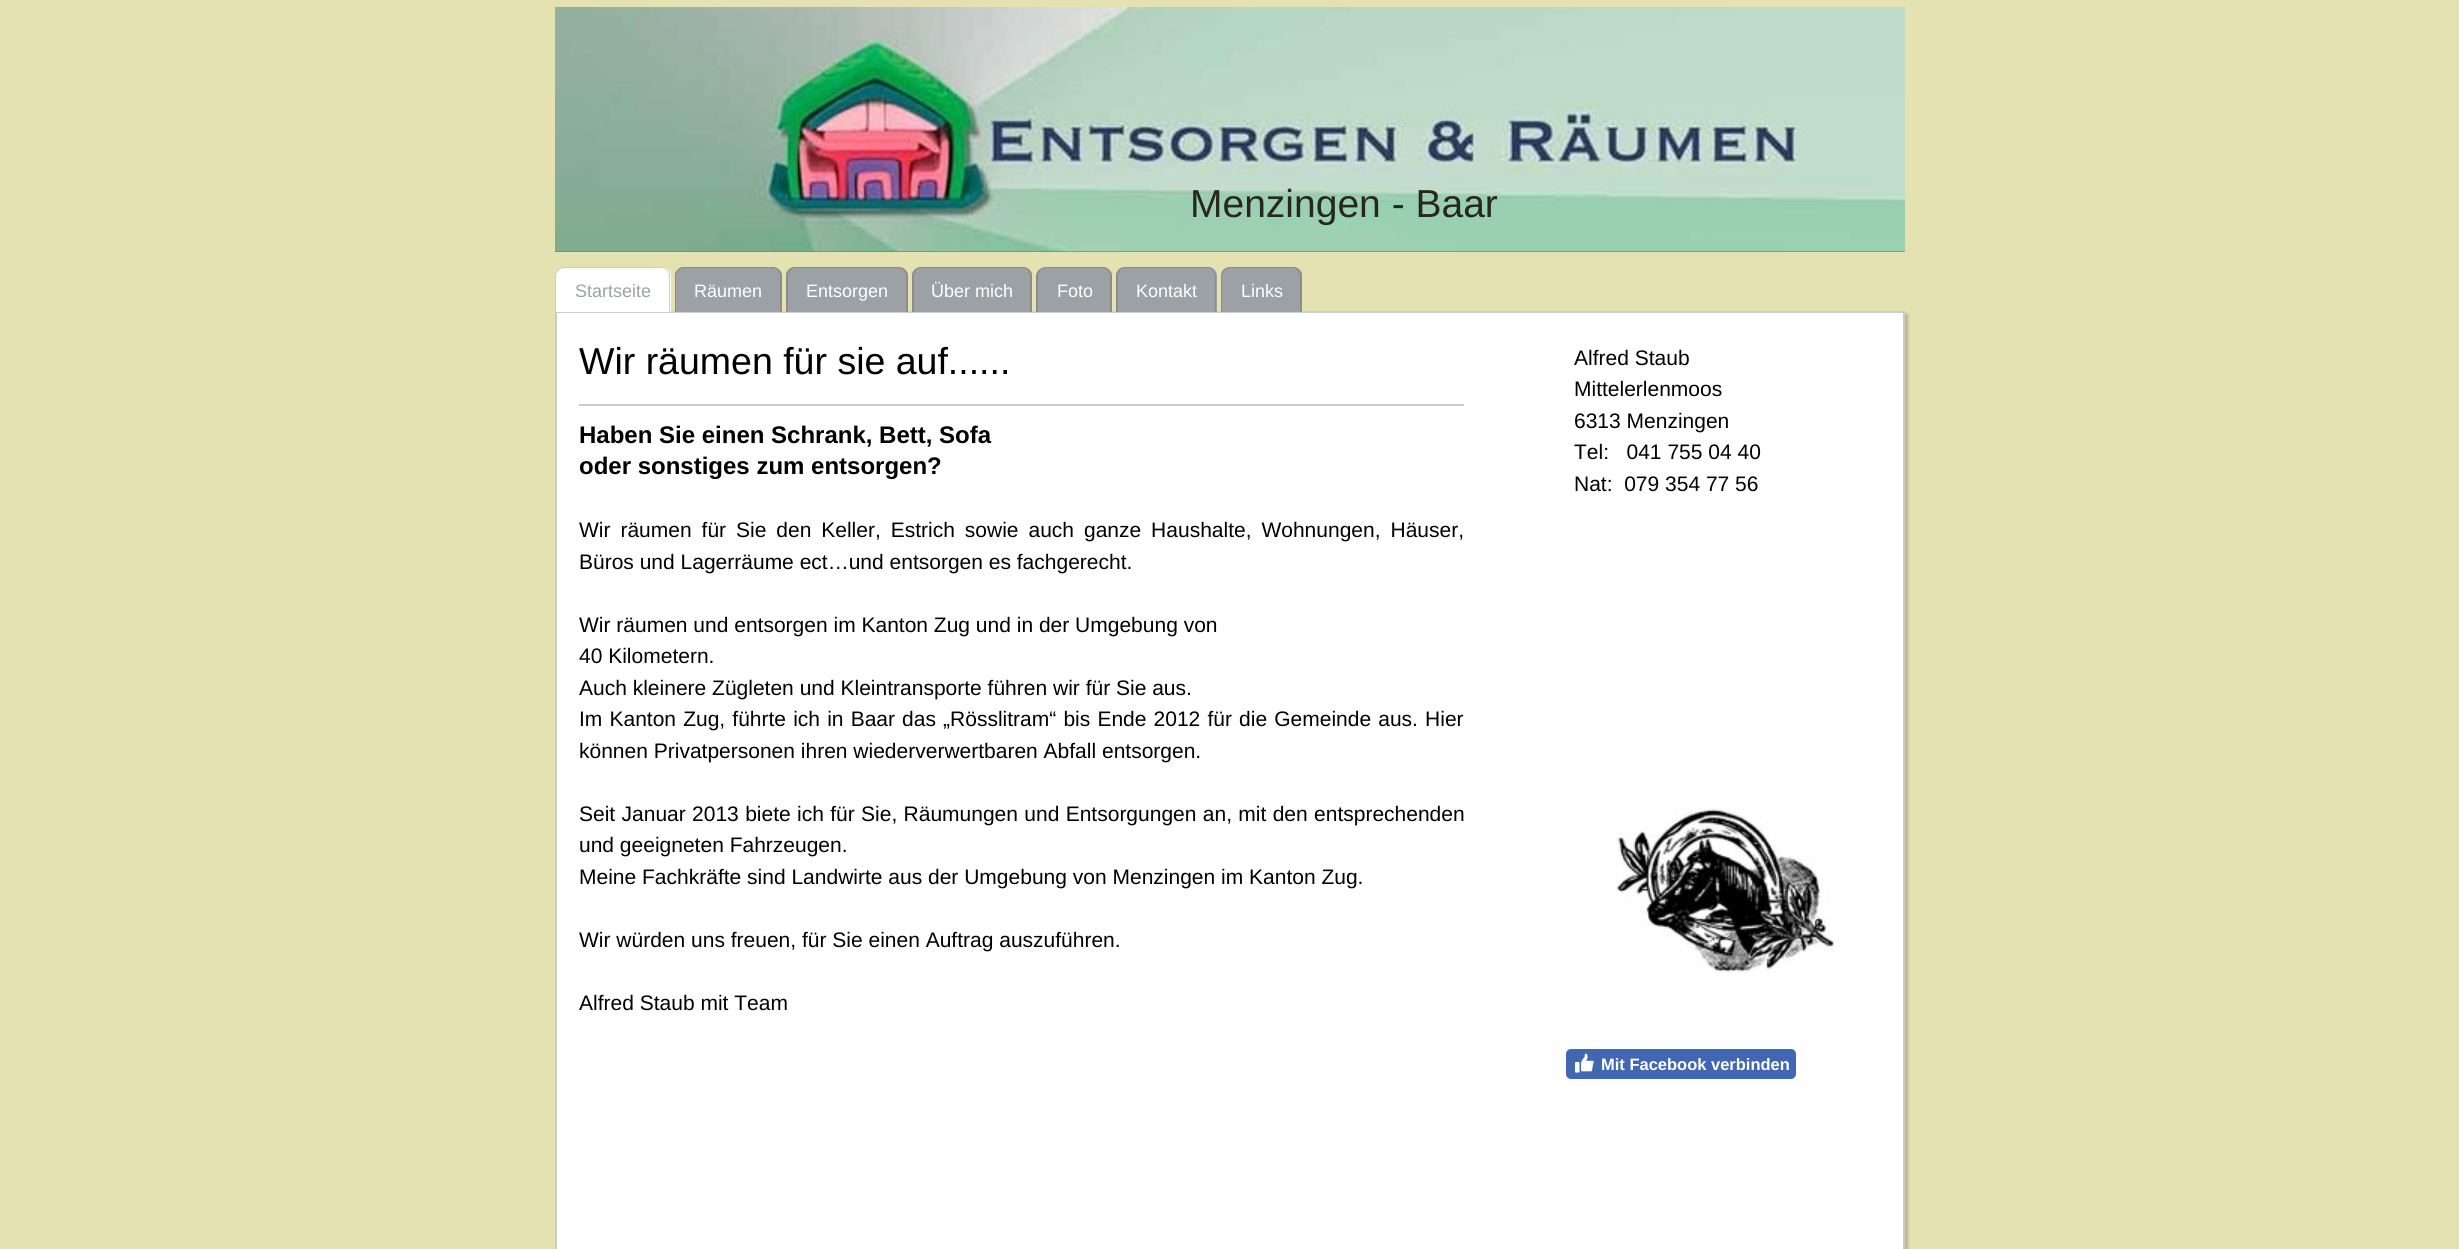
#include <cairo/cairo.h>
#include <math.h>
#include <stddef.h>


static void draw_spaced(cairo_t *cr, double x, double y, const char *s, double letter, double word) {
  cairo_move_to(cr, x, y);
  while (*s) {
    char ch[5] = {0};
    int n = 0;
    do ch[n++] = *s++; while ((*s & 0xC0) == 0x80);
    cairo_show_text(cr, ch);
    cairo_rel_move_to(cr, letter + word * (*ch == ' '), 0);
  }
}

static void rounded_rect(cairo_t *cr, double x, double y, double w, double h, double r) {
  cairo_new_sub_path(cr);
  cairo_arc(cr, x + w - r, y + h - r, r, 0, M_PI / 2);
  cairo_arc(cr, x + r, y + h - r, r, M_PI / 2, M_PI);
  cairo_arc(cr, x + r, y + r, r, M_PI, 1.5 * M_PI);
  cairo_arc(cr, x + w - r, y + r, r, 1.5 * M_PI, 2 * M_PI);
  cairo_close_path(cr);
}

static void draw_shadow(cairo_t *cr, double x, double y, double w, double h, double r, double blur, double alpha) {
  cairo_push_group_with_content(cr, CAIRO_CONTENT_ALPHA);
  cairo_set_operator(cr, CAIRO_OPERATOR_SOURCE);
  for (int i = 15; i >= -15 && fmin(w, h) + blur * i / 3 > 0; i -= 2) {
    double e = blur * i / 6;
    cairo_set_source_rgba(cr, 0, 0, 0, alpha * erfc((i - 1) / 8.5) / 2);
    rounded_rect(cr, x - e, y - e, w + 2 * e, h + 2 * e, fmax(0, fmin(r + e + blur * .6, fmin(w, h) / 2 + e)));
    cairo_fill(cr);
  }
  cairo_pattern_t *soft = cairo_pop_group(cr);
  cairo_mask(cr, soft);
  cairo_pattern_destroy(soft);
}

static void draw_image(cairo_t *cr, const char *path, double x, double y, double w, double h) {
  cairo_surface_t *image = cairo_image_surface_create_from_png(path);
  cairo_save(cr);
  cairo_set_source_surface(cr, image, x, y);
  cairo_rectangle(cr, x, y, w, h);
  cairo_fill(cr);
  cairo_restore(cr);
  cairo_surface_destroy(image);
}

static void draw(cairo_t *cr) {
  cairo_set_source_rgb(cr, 228 / 255.0, 226 / 255.0, 176 / 255.0);
  cairo_paint(cr);
  cairo_set_source_rgb(cr, 133 / 255.0, 130 / 255.0, 98 / 255.0);
  cairo_rectangle(cr, 555, 251, 1350, 1);
  cairo_fill(cr);
  draw_image(cr, "images/1.png", 555, 7, 1350, 245);
  cairo_set_source_rgb(cr, 0, 0, 0);
  draw_shadow(cr, 558, 314, 1350, 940, 0, 1.5, 0.2);
  cairo_set_source_rgb(cr, 1, 1, 1);
  cairo_rectangle(cr, 556, 312, 1348, 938);
  cairo_fill_preserve(cr);
  cairo_set_source_rgb(cr, 204 / 255.0, 204 / 255.0, 204 / 255.0);
  cairo_stroke(cr);
  cairo_set_source_rgb(cr, 1, 1, 1);
  cairo_new_path(cr);
  cairo_move_to(cr, 564, 267);
  cairo_line_to(cr, 662, 267);
  cairo_curve_to(cr, 667, 267, 671, 271, 671, 276);
  cairo_line_to(cr, 671, 312);
  cairo_line_to(cr, 555, 312);
  cairo_line_to(cr, 555, 276);
  cairo_curve_to(cr, 555, 271, 559, 267, 564, 267);
  cairo_close_path(cr);
  cairo_fill(cr);
  cairo_set_source_rgb(cr, 204 / 255.0, 204 / 255.0, 204 / 255.0);
  cairo_set_fill_rule(cr, CAIRO_FILL_RULE_EVEN_ODD);
  cairo_new_path(cr);
  cairo_move_to(cr, 564, 267);
  cairo_line_to(cr, 662, 267);
  cairo_curve_to(cr, 666, 267, 670, 271, 670, 276);
  cairo_line_to(cr, 670, 312);
  cairo_line_to(cr, 555, 312);
  cairo_line_to(cr, 555, 276);
  cairo_curve_to(cr, 555, 271, 559, 267, 564, 267);
  cairo_close_path(cr);
  cairo_move_to(cr, 564, 268);
  cairo_line_to(cr, 662, 268);
  cairo_curve_to(cr, 666, 268, 669, 272, 669, 276);
  cairo_line_to(cr, 669, 312);
  cairo_line_to(cr, 556, 312);
  cairo_line_to(cr, 556, 276);
  cairo_curve_to(cr, 556, 272, 560, 268, 564, 268);
  cairo_close_path(cr);
  cairo_fill(cr);
  cairo_set_source_rgb(cr, 156 / 255.0, 161 / 255.0, 166 / 255.0);
  cairo_new_path(cr);
  cairo_move_to(cr, 684, 267);
  cairo_line_to(cr, 773, 267);
  cairo_curve_to(cr, 778, 267, 782, 271, 782, 276);
  cairo_line_to(cr, 782, 312);
  cairo_line_to(cr, 675, 312);
  cairo_line_to(cr, 675, 276);
  cairo_curve_to(cr, 675, 271, 679, 267, 684, 267);
  cairo_close_path(cr);
  cairo_fill(cr);
  cairo_set_source_rgb(cr, 140 / 255.0, 140 / 255.0, 140 / 255.0);
  cairo_new_path(cr);
  cairo_move_to(cr, 684, 267);
  cairo_line_to(cr, 772, 267);
  cairo_curve_to(cr, 777, 267, 782, 271, 782, 276);
  cairo_line_to(cr, 782, 312);
  cairo_line_to(cr, 675, 312);
  cairo_line_to(cr, 675, 276);
  cairo_curve_to(cr, 675, 271, 679, 267, 684, 267);
  cairo_close_path(cr);
  cairo_move_to(cr, 684, 268);
  cairo_line_to(cr, 772, 268);
  cairo_curve_to(cr, 777, 268, 780, 272, 780, 276);
  cairo_line_to(cr, 780, 312);
  cairo_line_to(cr, 676, 312);
  cairo_line_to(cr, 676, 276);
  cairo_curve_to(cr, 676, 272, 680, 268, 684, 268);
  cairo_close_path(cr);
  cairo_fill(cr);
  cairo_set_source_rgb(cr, 156 / 255.0, 161 / 255.0, 166 / 255.0);
  cairo_new_path(cr);
  cairo_move_to(cr, 795, 267);
  cairo_line_to(cr, 899, 267);
  cairo_curve_to(cr, 904, 267, 908, 271, 908, 276);
  cairo_line_to(cr, 908, 312);
  cairo_line_to(cr, 786, 312);
  cairo_line_to(cr, 786, 276);
  cairo_curve_to(cr, 786, 271, 790, 267, 795, 267);
  cairo_close_path(cr);
  cairo_fill(cr);
  cairo_set_source_rgb(cr, 140 / 255.0, 140 / 255.0, 140 / 255.0);
  cairo_new_path(cr);
  cairo_move_to(cr, 795, 267);
  cairo_line_to(cr, 898, 267);
  cairo_curve_to(cr, 903, 267, 908, 271, 908, 276);
  cairo_line_to(cr, 908, 312);
  cairo_line_to(cr, 786, 312);
  cairo_line_to(cr, 786, 276);
  cairo_curve_to(cr, 786, 271, 790, 267, 795, 267);
  cairo_close_path(cr);
  cairo_move_to(cr, 795, 268);
  cairo_line_to(cr, 898, 268);
  cairo_curve_to(cr, 903, 268, 906, 272, 906, 276);
  cairo_line_to(cr, 906, 312);
  cairo_line_to(cr, 788, 312);
  cairo_line_to(cr, 788, 276);
  cairo_curve_to(cr, 788, 272, 791, 268, 795, 268);
  cairo_close_path(cr);
  cairo_fill(cr);
  cairo_set_source_rgb(cr, 156 / 255.0, 161 / 255.0, 166 / 255.0);
  cairo_new_path(cr);
  cairo_move_to(cr, 921, 267);
  cairo_line_to(cr, 1023, 267);
  cairo_curve_to(cr, 1028, 267, 1032, 271, 1032, 276);
  cairo_line_to(cr, 1032, 312);
  cairo_line_to(cr, 912, 312);
  cairo_line_to(cr, 912, 276);
  cairo_curve_to(cr, 912, 271, 916, 267, 921, 267);
  cairo_close_path(cr);
  cairo_fill(cr);
  cairo_set_source_rgb(cr, 140 / 255.0, 140 / 255.0, 140 / 255.0);
  cairo_new_path(cr);
  cairo_move_to(cr, 921, 267);
  cairo_line_to(cr, 1023, 267);
  cairo_curve_to(cr, 1028, 267, 1032, 271, 1032, 276);
  cairo_line_to(cr, 1032, 312);
  cairo_line_to(cr, 912, 312);
  cairo_line_to(cr, 912, 276);
  cairo_curve_to(cr, 912, 271, 916, 267, 921, 267);
  cairo_close_path(cr);
  cairo_move_to(cr, 921, 268);
  cairo_line_to(cr, 1023, 268);
  cairo_curve_to(cr, 1027, 268, 1030, 272, 1030, 276);
  cairo_line_to(cr, 1030, 312);
  cairo_line_to(cr, 914, 312);
  cairo_line_to(cr, 914, 276);
  cairo_curve_to(cr, 914, 272, 917, 268, 921, 268);
  cairo_close_path(cr);
  cairo_fill(cr);
  cairo_set_source_rgb(cr, 156 / 255.0, 161 / 255.0, 166 / 255.0);
  cairo_new_path(cr);
  cairo_move_to(cr, 1046, 267);
  cairo_line_to(cr, 1103, 267);
  cairo_curve_to(cr, 1108, 267, 1112, 271, 1112, 276);
  cairo_line_to(cr, 1112, 312);
  cairo_line_to(cr, 1037, 312);
  cairo_line_to(cr, 1037, 276);
  cairo_curve_to(cr, 1037, 271, 1041, 267, 1046, 267);
  cairo_close_path(cr);
  cairo_fill(cr);
  cairo_set_source_rgb(cr, 140 / 255.0, 140 / 255.0, 140 / 255.0);
  cairo_new_path(cr);
  cairo_move_to(cr, 1046, 267);
  cairo_line_to(cr, 1102, 267);
  cairo_curve_to(cr, 1107, 267, 1112, 271, 1112, 276);
  cairo_line_to(cr, 1112, 312);
  cairo_line_to(cr, 1036, 312);
  cairo_line_to(cr, 1036, 276);
  cairo_curve_to(cr, 1036, 271, 1041, 267, 1046, 267);
  cairo_close_path(cr);
  cairo_move_to(cr, 1046, 268);
  cairo_line_to(cr, 1102, 268);
  cairo_curve_to(cr, 1107, 268, 1110, 272, 1110, 276);
  cairo_line_to(cr, 1110, 312);
  cairo_line_to(cr, 1038, 312);
  cairo_line_to(cr, 1038, 276);
  cairo_curve_to(cr, 1038, 272, 1041, 268, 1046, 268);
  cairo_close_path(cr);
  cairo_fill(cr);
  cairo_set_source_rgb(cr, 156 / 255.0, 161 / 255.0, 166 / 255.0);
  cairo_new_path(cr);
  cairo_move_to(cr, 1125, 267);
  cairo_line_to(cr, 1208, 267);
  cairo_curve_to(cr, 1213, 267, 1217, 271, 1217, 276);
  cairo_line_to(cr, 1217, 312);
  cairo_line_to(cr, 1116, 312);
  cairo_line_to(cr, 1116, 276);
  cairo_curve_to(cr, 1116, 271, 1120, 267, 1125, 267);
  cairo_close_path(cr);
  cairo_fill(cr);
  cairo_set_source_rgb(cr, 140 / 255.0, 140 / 255.0, 140 / 255.0);
  cairo_new_path(cr);
  cairo_move_to(cr, 1125, 267);
  cairo_line_to(cr, 1208, 267);
  cairo_curve_to(cr, 1212, 267, 1216, 271, 1216, 276);
  cairo_line_to(cr, 1216, 312);
  cairo_line_to(cr, 1116, 312);
  cairo_line_to(cr, 1116, 276);
  cairo_curve_to(cr, 1116, 271, 1120, 267, 1125, 267);
  cairo_close_path(cr);
  cairo_move_to(cr, 1125, 268);
  cairo_line_to(cr, 1208, 268);
  cairo_curve_to(cr, 1212, 268, 1215, 272, 1215, 276);
  cairo_line_to(cr, 1215, 312);
  cairo_line_to(cr, 1118, 312);
  cairo_line_to(cr, 1118, 276);
  cairo_curve_to(cr, 1118, 272, 1121, 268, 1125, 268);
  cairo_close_path(cr);
  cairo_fill(cr);
  cairo_set_source_rgb(cr, 156 / 255.0, 161 / 255.0, 166 / 255.0);
  cairo_new_path(cr);
  cairo_move_to(cr, 1230, 267);
  cairo_line_to(cr, 1293, 267);
  cairo_curve_to(cr, 1298, 267, 1302, 271, 1302, 276);
  cairo_line_to(cr, 1302, 312);
  cairo_line_to(cr, 1221, 312);
  cairo_line_to(cr, 1221, 276);
  cairo_curve_to(cr, 1221, 271, 1225, 267, 1230, 267);
  cairo_close_path(cr);
  cairo_fill(cr);
  cairo_set_source_rgb(cr, 140 / 255.0, 140 / 255.0, 140 / 255.0);
  cairo_new_path(cr);
  cairo_move_to(cr, 1230, 267);
  cairo_line_to(cr, 1293, 267);
  cairo_curve_to(cr, 1298, 267, 1302, 271, 1302, 276);
  cairo_line_to(cr, 1302, 312);
  cairo_line_to(cr, 1221, 312);
  cairo_line_to(cr, 1221, 276);
  cairo_curve_to(cr, 1221, 271, 1225, 267, 1230, 267);
  cairo_close_path(cr);
  cairo_move_to(cr, 1230, 268);
  cairo_line_to(cr, 1293, 268);
  cairo_curve_to(cr, 1297, 268, 1300, 272, 1300, 276);
  cairo_line_to(cr, 1300, 312);
  cairo_line_to(cr, 1222, 312);
  cairo_line_to(cr, 1222, 276);
  cairo_curve_to(cr, 1222, 272, 1226, 268, 1230, 268);
  cairo_close_path(cr);
  cairo_fill(cr);
  cairo_set_source_rgb(cr, 204 / 255.0, 204 / 255.0, 204 / 255.0);
  cairo_rectangle(cr, 579, 404, 885, 2);
  cairo_fill(cr);
  draw_image(cr, "images/2.png", 1614, 808, 221, 165);
  cairo_set_source_rgb(cr, 66 / 255.0, 103 / 255.0, 178 / 255.0);
  rounded_rect(cr, 1567, 1050, 228, 28, 4);
  cairo_fill_preserve(cr);
  cairo_stroke(cr);
  draw_image(cr, "images/3.png", 1575, 1053, 19, 20);
  cairo_select_font_face(cr, "Liberation Sans", CAIRO_FONT_SLANT_NORMAL, CAIRO_FONT_WEIGHT_NORMAL);
  cairo_set_font_size(cr, 39);
  cairo_set_source_rgb(cr, 39 / 255.0, 39 / 255.0, 33 / 255.0);
  cairo_move_to(cr, 1190, 217);
  cairo_show_text(cr, "Menzingen - Baar");
  cairo_set_font_size(cr, 18);
  cairo_set_source_rgb(cr, 156 / 255.0, 161 / 255.0, 166 / 255.0);
  cairo_move_to(cr, 575, 297);
  cairo_show_text(cr, "Startseite");
  cairo_set_source_rgb(cr, 1, 1, 1);
  cairo_move_to(cr, 694, 297);
  cairo_show_text(cr, "Räumen");
  cairo_move_to(cr, 806, 297);
  cairo_show_text(cr, "Entsorgen");
  cairo_move_to(cr, 931, 297);
  cairo_show_text(cr, "Über mich");
  cairo_move_to(cr, 1057, 297);
  cairo_show_text(cr, "Foto");
  cairo_move_to(cr, 1136, 297);
  cairo_show_text(cr, "Kontakt");
  cairo_move_to(cr, 1241, 297);
  cairo_show_text(cr, "Links");
  cairo_set_font_size(cr, 37.5);
  cairo_set_source_rgb(cr, 0, 0, 0);
  cairo_move_to(cr, 579, 374);
  cairo_show_text(cr, "Wir räumen für sie auf......");
  cairo_select_font_face(cr, "Liberation Sans", CAIRO_FONT_SLANT_NORMAL, CAIRO_FONT_WEIGHT_BOLD);
  cairo_set_font_size(cr, 24);
  cairo_move_to(cr, 579, 443);
  cairo_show_text(cr, "Haben Sie einen Schrank, Bett, Sofa");
  cairo_move_to(cr, 579, 474);
  cairo_show_text(cr, "oder sonstiges zum entsorgen?");
  cairo_select_font_face(cr, "Liberation Sans", CAIRO_FONT_SLANT_NORMAL, CAIRO_FONT_WEIGHT_NORMAL);
  cairo_set_font_size(cr, 21);
  draw_spaced(cr, 579, 537, "Wir räumen für Sie den Keller, Estrich sowie auch ganze Haushalte, Wohnungen, Häuser,", 0, 4.1);
  cairo_move_to(cr, 579, 569);
  cairo_show_text(cr, "Büros und Lagerräume ect…und entsorgen es fachgerecht.");
  cairo_move_to(cr, 579, 632);
  cairo_show_text(cr, "Wir räumen und entsorgen im Kanton Zug und in der Umgebung von");
  cairo_move_to(cr, 579, 663);
  cairo_show_text(cr, "40 Kilometern.");
  cairo_move_to(cr, 579, 695);
  cairo_show_text(cr, "Auch kleinere Zügleten und Kleintransporte führen wir für Sie aus.");
  draw_spaced(cr, 579, 726, "Im Kanton Zug, führte ich in Baar das „Rösslitram“ bis Ende 2012 für die Gemeinde aus. Hier", 0, 1.3);
  cairo_move_to(cr, 579, 758);
  cairo_show_text(cr, "können Privatpersonen ihren wiederverwertbaren Abfall entsorgen.");
  draw_spaced(cr, 579, 821, "Seit Januar 2013 biete ich für Sie, Räumungen und Entsorgungen an, mit den entsprechenden", 0, 0.5);
  cairo_move_to(cr, 579, 852);
  cairo_show_text(cr, "und geeigneten Fahrzeugen.");
  cairo_move_to(cr, 579, 884);
  cairo_show_text(cr, "Meine Fachkräfte sind Landwirte aus der Umgebung von Menzingen im Kanton Zug.");
  cairo_move_to(cr, 579, 947);
  cairo_show_text(cr, "Wir würden uns freuen, für Sie einen Auftrag auszuführen.");
  cairo_move_to(cr, 579, 1010);
  cairo_show_text(cr, "Alfred Staub mit Team");
  cairo_move_to(cr, 1574, 365);
  cairo_show_text(cr, "Alfred Staub");
  cairo_move_to(cr, 1574, 396);
  cairo_show_text(cr, "Mittelerlenmoos");
  cairo_move_to(cr, 1574, 428);
  cairo_show_text(cr, "6313 Menzingen");
  cairo_move_to(cr, 1574, 459);
  cairo_show_text(cr, "Tel:   041 755 04 40");
  cairo_move_to(cr, 1574, 491);
  cairo_show_text(cr, "Nat:  079 354 77 56");
  cairo_select_font_face(cr, "Liberation Sans", CAIRO_FONT_SLANT_NORMAL, CAIRO_FONT_WEIGHT_BOLD);
  cairo_set_font_size(cr, 16.5);
  cairo_set_source_rgb(cr, 1, 1, 1);
  cairo_move_to(cr, 1601, 1070);
  cairo_show_text(cr, "Mit Facebook verbinden");
}

int main(void) {
  cairo_surface_t *surface = cairo_image_surface_create(CAIRO_FORMAT_RGB24, 2459, 1249);
  cairo_t *cr = cairo_create(surface);
  cairo_font_options_t *options = cairo_font_options_create();
  cairo_font_options_set_hint_metrics(options, CAIRO_HINT_METRICS_OFF);
  cairo_font_options_set_hint_style(options, CAIRO_HINT_STYLE_NONE);
  cairo_set_font_options(cr, options);
  cairo_set_miter_limit(cr, 4);
  draw(cr);
  cairo_surface_write_to_png(surface, "out.png");
  cairo_font_options_destroy(options);
  cairo_destroy(cr);
  cairo_surface_destroy(surface);
  return 0;
}
